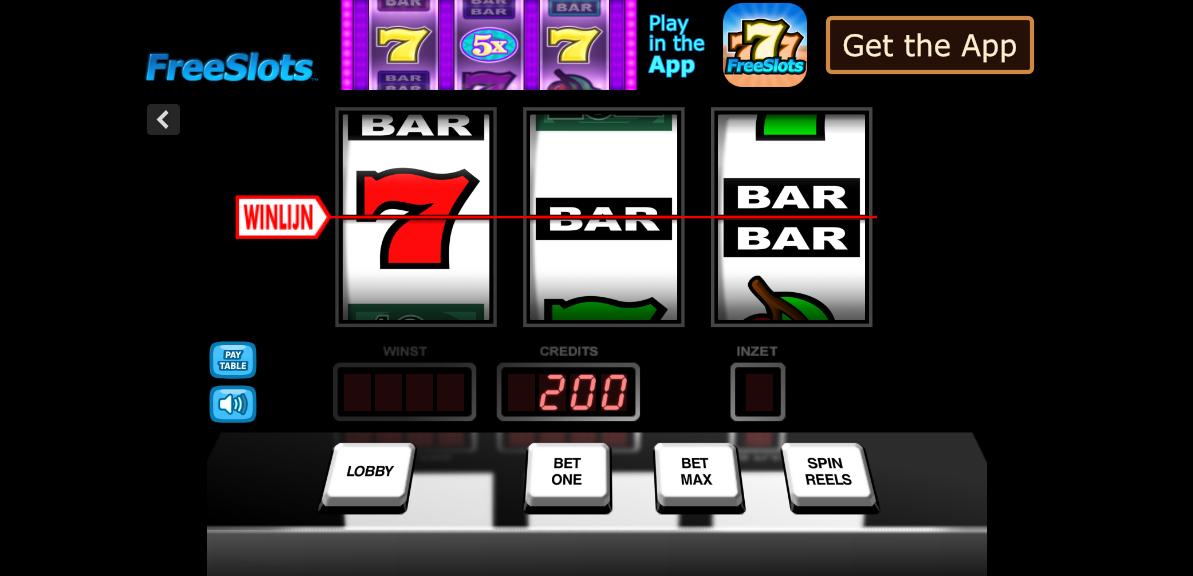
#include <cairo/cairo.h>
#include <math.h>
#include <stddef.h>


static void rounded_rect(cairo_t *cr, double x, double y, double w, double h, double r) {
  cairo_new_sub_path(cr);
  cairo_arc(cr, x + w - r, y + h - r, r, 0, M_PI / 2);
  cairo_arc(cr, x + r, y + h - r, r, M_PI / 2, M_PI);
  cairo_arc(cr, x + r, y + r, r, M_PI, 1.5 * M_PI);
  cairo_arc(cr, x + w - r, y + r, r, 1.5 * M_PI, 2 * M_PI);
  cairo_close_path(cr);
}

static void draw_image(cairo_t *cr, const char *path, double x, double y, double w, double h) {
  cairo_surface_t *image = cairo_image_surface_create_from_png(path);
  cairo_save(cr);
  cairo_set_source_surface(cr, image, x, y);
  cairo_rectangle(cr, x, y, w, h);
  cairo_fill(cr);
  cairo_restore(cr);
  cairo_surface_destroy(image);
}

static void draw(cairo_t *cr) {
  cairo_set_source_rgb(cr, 0, 0, 0);
  cairo_paint(cr);
  draw_image(cr, "images/1.png", 144, 51, 175, 31);
  draw_image(cr, "images/2.png", 340, 0, 695, 90);
  draw_image(cr, "images/3.png", 207, 107, 780, 469);
  cairo_set_source_rgb(cr, 38 / 255.0, 38 / 255.0, 38 / 255.0);
  rounded_rect(cr, 147, 104, 33, 31, 4);
  cairo_fill(cr);
  cairo_set_source_rgb(cr, 218 / 255.0, 218 / 255.0, 218 / 255.0);
  cairo_set_fill_rule(cr, CAIRO_FILL_RULE_EVEN_ODD);
  cairo_new_path(cr);
  cairo_move_to(cr, 166, 110);
  cairo_line_to(cr, 168.5, 113);
  cairo_line_to(cr, 162, 119.5);
  cairo_line_to(cr, 168.5, 126);
  cairo_line_to(cr, 166, 129);
  cairo_line_to(cr, 156.5, 119.5);
  cairo_close_path(cr);
  cairo_fill(cr);
}

int main(void) {
  cairo_surface_t *surface = cairo_image_surface_create(CAIRO_FORMAT_RGB24, 1193, 576);
  cairo_t *cr = cairo_create(surface);
  cairo_font_options_t *options = cairo_font_options_create();
  cairo_font_options_set_hint_metrics(options, CAIRO_HINT_METRICS_OFF);
  cairo_font_options_set_hint_style(options, CAIRO_HINT_STYLE_NONE);
  cairo_set_font_options(cr, options);
  cairo_set_miter_limit(cr, 4);
  draw(cr);
  cairo_surface_write_to_png(surface, "out.png");
  cairo_font_options_destroy(options);
  cairo_destroy(cr);
  cairo_surface_destroy(surface);
  return 0;
}
